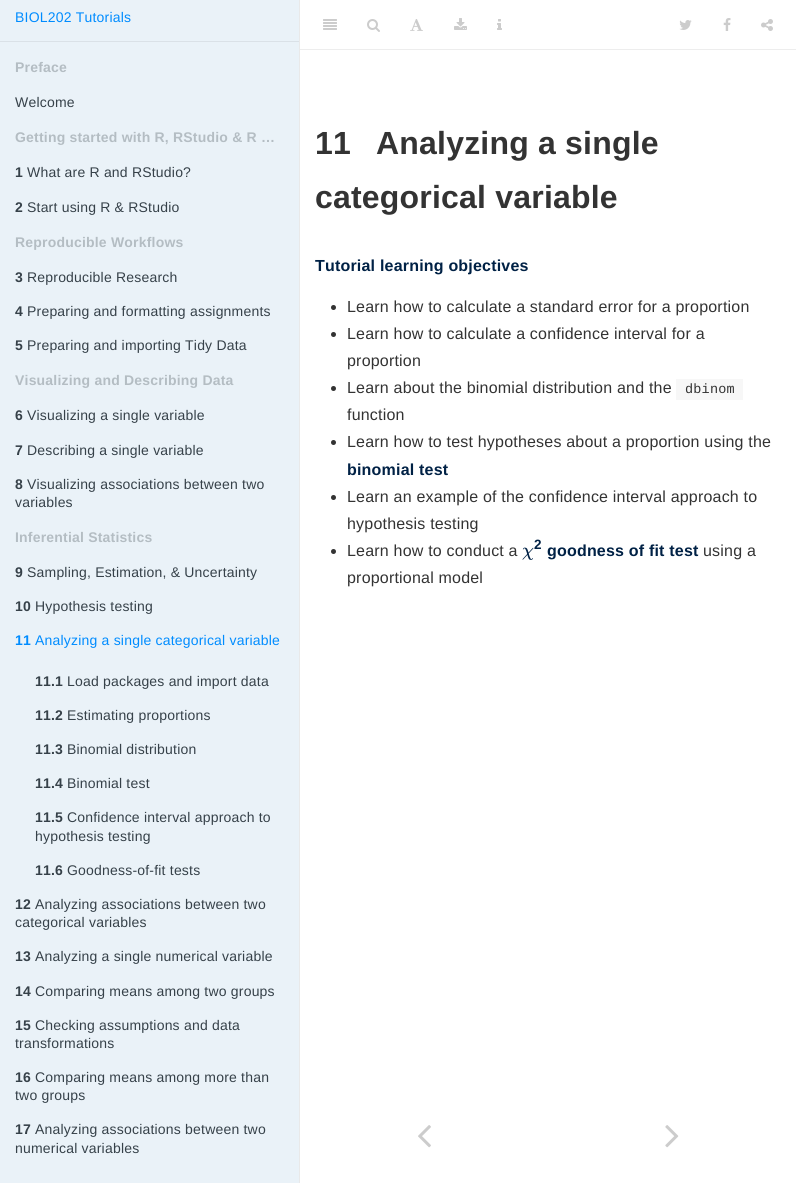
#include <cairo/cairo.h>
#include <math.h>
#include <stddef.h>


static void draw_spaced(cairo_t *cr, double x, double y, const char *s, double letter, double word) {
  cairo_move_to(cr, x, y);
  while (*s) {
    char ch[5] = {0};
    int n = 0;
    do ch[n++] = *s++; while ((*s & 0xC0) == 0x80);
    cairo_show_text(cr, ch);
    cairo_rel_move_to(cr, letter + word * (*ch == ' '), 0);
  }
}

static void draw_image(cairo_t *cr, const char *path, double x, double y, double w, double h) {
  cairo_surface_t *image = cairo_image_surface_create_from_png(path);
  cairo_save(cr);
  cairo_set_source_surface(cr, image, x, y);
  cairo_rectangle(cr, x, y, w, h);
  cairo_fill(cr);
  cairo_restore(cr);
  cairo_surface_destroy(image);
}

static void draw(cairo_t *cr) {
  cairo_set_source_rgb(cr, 1, 1, 1);
  cairo_paint(cr);
  cairo_set_source_rgb(cr, 233 / 255.0, 233 / 255.0, 233 / 255.0);
  cairo_rectangle(cr, 299, 0, 1, 1183);
  cairo_fill(cr);
  cairo_set_source_rgb(cr, 234 / 255.0, 242 / 255.0, 248 / 255.0);
  cairo_rectangle(cr, 0, 0, 299, 1183);
  cairo_fill(cr);
  cairo_set_source_rgb(cr, 218 / 255.0, 225 / 255.0, 231 / 255.0);
  cairo_rectangle(cr, 0, 41, 299, 1);
  cairo_fill(cr);
  cairo_set_source_rgb(cr, 237 / 255.0, 237 / 255.0, 237 / 255.0);
  cairo_rectangle(cr, 300, 49, 496, 1);
  cairo_fill(cr);
  draw_image(cr, "images/1.png", 323, 19, 14, 11);
  draw_image(cr, "images/2.png", 367, 19, 13, 13);
  draw_image(cr, "images/3.png", 410, 19, 13, 12);
  draw_image(cr, "images/4.png", 454, 18, 13, 12);
  draw_image(cr, "images/5.png", 497, 19, 5, 11);
  draw_image(cr, "images/6.png", 679, 20, 13, 10);
  draw_image(cr, "images/7.png", 723, 18, 8, 13);
  draw_image(cr, "images/8.png", 761, 19, 12, 12);
  cairo_set_source_rgb(cr, 51 / 255.0, 51 / 255.0, 51 / 255.0);
  cairo_arc(cr, 333.5, 307.5, 2.5, 0, 2 * M_PI);
  cairo_fill(cr);
  cairo_arc(cr, 333.5, 334.5, 2.5, 0, 2 * M_PI);
  cairo_fill(cr);
  cairo_arc(cr, 333.5, 388.5, 2.5, 0, 2 * M_PI);
  cairo_fill(cr);
  cairo_set_source_rgb(cr, 247 / 255.0, 247 / 255.0, 247 / 255.0);
  cairo_rectangle(cr, 676, 379, 67, 21);
  cairo_fill(cr);
  cairo_set_source_rgb(cr, 51 / 255.0, 51 / 255.0, 51 / 255.0);
  cairo_arc(cr, 333.5, 442.5, 2.5, 0, 2 * M_PI);
  cairo_fill(cr);
  cairo_arc(cr, 333.5, 497.5, 2.5, 0, 2 * M_PI);
  cairo_fill(cr);
  cairo_arc(cr, 333.5, 551.5, 2.5, 0, 2 * M_PI);
  cairo_fill(cr);
  draw_image(cr, "images/9.png", 418, 1125, 13, 23);
  draw_image(cr, "images/10.png", 665, 1125, 14, 23);
  cairo_select_font_face(cr, "Liberation Sans", CAIRO_FONT_SLANT_NORMAL, CAIRO_FONT_WEIGHT_NORMAL);
  cairo_set_font_size(cr, 14);
  cairo_set_source_rgb(cr, 0, 140 / 255.0, 1);
  draw_spaced(cr, 15, 22, "BIOL202 Tutorials", 0.2, 0);
  cairo_select_font_face(cr, "Liberation Sans", CAIRO_FONT_SLANT_NORMAL, CAIRO_FONT_WEIGHT_BOLD);
  cairo_set_source_rgb(cr, 180 / 255.0, 189 / 255.0, 195 / 255.0);
  draw_spaced(cr, 15, 72, "Preface", 0.2, 0);
  cairo_select_font_face(cr, "Liberation Sans", CAIRO_FONT_SLANT_NORMAL, CAIRO_FONT_WEIGHT_NORMAL);
  cairo_set_source_rgb(cr, 54 / 255.0, 65 / 255.0, 73 / 255.0);
  draw_spaced(cr, 15, 107, "Welcome", 0.2, 0);
  cairo_select_font_face(cr, "Liberation Sans", CAIRO_FONT_SLANT_NORMAL, CAIRO_FONT_WEIGHT_BOLD);
  cairo_set_source_rgb(cr, 180 / 255.0, 189 / 255.0, 195 / 255.0);
  draw_spaced(cr, 15, 142, "Getting started with R, RStudio & R …", 0.2, 0);
  cairo_set_source_rgb(cr, 54 / 255.0, 65 / 255.0, 73 / 255.0);
  draw_spaced(cr, 15, 177, "1", 0.2, 0);
  cairo_select_font_face(cr, "Liberation Sans", CAIRO_FONT_SLANT_NORMAL, CAIRO_FONT_WEIGHT_NORMAL);
  draw_spaced(cr, 27, 177, "What are R and RStudio?", 0.2, 0);
  cairo_select_font_face(cr, "Liberation Sans", CAIRO_FONT_SLANT_NORMAL, CAIRO_FONT_WEIGHT_BOLD);
  draw_spaced(cr, 15, 212, "2", 0.2, 0);
  cairo_select_font_face(cr, "Liberation Sans", CAIRO_FONT_SLANT_NORMAL, CAIRO_FONT_WEIGHT_NORMAL);
  draw_spaced(cr, 27, 212, "Start using R & RStudio", 0.2, 0);
  cairo_select_font_face(cr, "Liberation Sans", CAIRO_FONT_SLANT_NORMAL, CAIRO_FONT_WEIGHT_BOLD);
  cairo_set_source_rgb(cr, 180 / 255.0, 189 / 255.0, 195 / 255.0);
  draw_spaced(cr, 15, 247, "Reproducible Workflows", 0.2, 0);
  cairo_set_source_rgb(cr, 54 / 255.0, 65 / 255.0, 73 / 255.0);
  draw_spaced(cr, 15, 282, "3", 0.2, 0);
  cairo_select_font_face(cr, "Liberation Sans", CAIRO_FONT_SLANT_NORMAL, CAIRO_FONT_WEIGHT_NORMAL);
  draw_spaced(cr, 27, 282, "Reproducible Research", 0.2, 0);
  cairo_select_font_face(cr, "Liberation Sans", CAIRO_FONT_SLANT_NORMAL, CAIRO_FONT_WEIGHT_BOLD);
  draw_spaced(cr, 15, 316, "4", 0.2, 0);
  cairo_select_font_face(cr, "Liberation Sans", CAIRO_FONT_SLANT_NORMAL, CAIRO_FONT_WEIGHT_NORMAL);
  draw_spaced(cr, 27, 316, "Preparing and formatting assignments", 0.2, 0);
  cairo_select_font_face(cr, "Liberation Sans", CAIRO_FONT_SLANT_NORMAL, CAIRO_FONT_WEIGHT_BOLD);
  draw_spaced(cr, 15, 350, "5", 0.2, 0);
  cairo_select_font_face(cr, "Liberation Sans", CAIRO_FONT_SLANT_NORMAL, CAIRO_FONT_WEIGHT_NORMAL);
  draw_spaced(cr, 27, 350, "Preparing and importing Tidy Data", 0.2, 0);
  cairo_select_font_face(cr, "Liberation Sans", CAIRO_FONT_SLANT_NORMAL, CAIRO_FONT_WEIGHT_BOLD);
  cairo_set_source_rgb(cr, 180 / 255.0, 189 / 255.0, 195 / 255.0);
  draw_spaced(cr, 15, 385, "Visualizing and Describing Data", 0.2, 0);
  cairo_set_source_rgb(cr, 54 / 255.0, 65 / 255.0, 73 / 255.0);
  draw_spaced(cr, 15, 420, "6", 0.2, 0);
  cairo_select_font_face(cr, "Liberation Sans", CAIRO_FONT_SLANT_NORMAL, CAIRO_FONT_WEIGHT_NORMAL);
  draw_spaced(cr, 27, 420, "Visualizing a single variable", 0.2, 0);
  cairo_select_font_face(cr, "Liberation Sans", CAIRO_FONT_SLANT_NORMAL, CAIRO_FONT_WEIGHT_BOLD);
  draw_spaced(cr, 15, 455, "7", 0.2, 0);
  cairo_select_font_face(cr, "Liberation Sans", CAIRO_FONT_SLANT_NORMAL, CAIRO_FONT_WEIGHT_NORMAL);
  draw_spaced(cr, 27, 455, "Describing a single variable", 0.2, 0);
  cairo_select_font_face(cr, "Liberation Sans", CAIRO_FONT_SLANT_NORMAL, CAIRO_FONT_WEIGHT_BOLD);
  draw_spaced(cr, 15, 489, "8", 0.2, 0);
  cairo_select_font_face(cr, "Liberation Sans", CAIRO_FONT_SLANT_NORMAL, CAIRO_FONT_WEIGHT_NORMAL);
  draw_spaced(cr, 27, 489, "Visualizing associations between two", 0.2, 0);
  draw_spaced(cr, 15, 507, "variables", 0.2, 0);
  cairo_select_font_face(cr, "Liberation Sans", CAIRO_FONT_SLANT_NORMAL, CAIRO_FONT_WEIGHT_BOLD);
  cairo_set_source_rgb(cr, 180 / 255.0, 189 / 255.0, 195 / 255.0);
  draw_spaced(cr, 15, 542, "Inferential Statistics", 0.2, 0);
  cairo_set_source_rgb(cr, 54 / 255.0, 65 / 255.0, 73 / 255.0);
  draw_spaced(cr, 15, 577, "9", 0.2, 0);
  cairo_select_font_face(cr, "Liberation Sans", CAIRO_FONT_SLANT_NORMAL, CAIRO_FONT_WEIGHT_NORMAL);
  draw_spaced(cr, 27, 577, "Sampling, Estimation, & Uncertainty", 0.2, 0);
  cairo_select_font_face(cr, "Liberation Sans", CAIRO_FONT_SLANT_NORMAL, CAIRO_FONT_WEIGHT_BOLD);
  draw_spaced(cr, 15, 611, "10", 0.2, 0);
  cairo_select_font_face(cr, "Liberation Sans", CAIRO_FONT_SLANT_NORMAL, CAIRO_FONT_WEIGHT_NORMAL);
  draw_spaced(cr, 35, 611, "Hypothesis testing", 0.2, 0);
  cairo_select_font_face(cr, "Liberation Sans", CAIRO_FONT_SLANT_NORMAL, CAIRO_FONT_WEIGHT_BOLD);
  cairo_set_source_rgb(cr, 0, 140 / 255.0, 1);
  draw_spaced(cr, 15, 645, "11", 0.2, 0);
  cairo_select_font_face(cr, "Liberation Sans", CAIRO_FONT_SLANT_NORMAL, CAIRO_FONT_WEIGHT_NORMAL);
  draw_spaced(cr, 35, 645, "Analyzing a single categorical variable", 0.2, 0);
  cairo_select_font_face(cr, "Liberation Sans", CAIRO_FONT_SLANT_NORMAL, CAIRO_FONT_WEIGHT_BOLD);
  cairo_set_source_rgb(cr, 54 / 255.0, 65 / 255.0, 73 / 255.0);
  draw_spaced(cr, 35, 686, "11.1", 0.2, 0);
  cairo_select_font_face(cr, "Liberation Sans", CAIRO_FONT_SLANT_NORMAL, CAIRO_FONT_WEIGHT_NORMAL);
  draw_spaced(cr, 67, 686, "Load packages and import data", 0.2, 0);
  cairo_select_font_face(cr, "Liberation Sans", CAIRO_FONT_SLANT_NORMAL, CAIRO_FONT_WEIGHT_BOLD);
  draw_spaced(cr, 35, 720, "11.2", 0.2, 0);
  cairo_select_font_face(cr, "Liberation Sans", CAIRO_FONT_SLANT_NORMAL, CAIRO_FONT_WEIGHT_NORMAL);
  draw_spaced(cr, 67, 720, "Estimating proportions", 0.2, 0);
  cairo_select_font_face(cr, "Liberation Sans", CAIRO_FONT_SLANT_NORMAL, CAIRO_FONT_WEIGHT_BOLD);
  draw_spaced(cr, 35, 754, "11.3", 0.2, 0);
  cairo_select_font_face(cr, "Liberation Sans", CAIRO_FONT_SLANT_NORMAL, CAIRO_FONT_WEIGHT_NORMAL);
  draw_spaced(cr, 67, 754, "Binomial distribution", 0.2, 0);
  cairo_select_font_face(cr, "Liberation Sans", CAIRO_FONT_SLANT_NORMAL, CAIRO_FONT_WEIGHT_BOLD);
  draw_spaced(cr, 35, 788, "11.4", 0.2, 0);
  cairo_select_font_face(cr, "Liberation Sans", CAIRO_FONT_SLANT_NORMAL, CAIRO_FONT_WEIGHT_NORMAL);
  draw_spaced(cr, 67, 788, "Binomial test", 0.2, 0);
  cairo_select_font_face(cr, "Liberation Sans", CAIRO_FONT_SLANT_NORMAL, CAIRO_FONT_WEIGHT_BOLD);
  draw_spaced(cr, 35, 822, "11.5", 0.2, 0);
  cairo_select_font_face(cr, "Liberation Sans", CAIRO_FONT_SLANT_NORMAL, CAIRO_FONT_WEIGHT_NORMAL);
  draw_spaced(cr, 67, 822, "Confidence interval approach to", 0.2, 0);
  draw_spaced(cr, 35, 841, "hypothesis testing", 0.2, 0);
  cairo_select_font_face(cr, "Liberation Sans", CAIRO_FONT_SLANT_NORMAL, CAIRO_FONT_WEIGHT_BOLD);
  draw_spaced(cr, 35, 875, "11.6", 0.2, 0);
  cairo_select_font_face(cr, "Liberation Sans", CAIRO_FONT_SLANT_NORMAL, CAIRO_FONT_WEIGHT_NORMAL);
  draw_spaced(cr, 67, 875, "Goodness-of-fit tests", 0.2, 0);
  cairo_select_font_face(cr, "Liberation Sans", CAIRO_FONT_SLANT_NORMAL, CAIRO_FONT_WEIGHT_BOLD);
  draw_spaced(cr, 15, 909, "12", 0.2, 0);
  cairo_select_font_face(cr, "Liberation Sans", CAIRO_FONT_SLANT_NORMAL, CAIRO_FONT_WEIGHT_NORMAL);
  draw_spaced(cr, 35, 909, "Analyzing associations between two", 0.2, 0);
  draw_spaced(cr, 15, 927, "categorical variables", 0.2, 0);
  cairo_select_font_face(cr, "Liberation Sans", CAIRO_FONT_SLANT_NORMAL, CAIRO_FONT_WEIGHT_BOLD);
  draw_spaced(cr, 15, 961, "13", 0.2, 0);
  cairo_select_font_face(cr, "Liberation Sans", CAIRO_FONT_SLANT_NORMAL, CAIRO_FONT_WEIGHT_NORMAL);
  draw_spaced(cr, 35, 961, "Analyzing a single numerical variable", 0.2, 0);
  cairo_select_font_face(cr, "Liberation Sans", CAIRO_FONT_SLANT_NORMAL, CAIRO_FONT_WEIGHT_BOLD);
  draw_spaced(cr, 15, 996, "14", 0.2, 0);
  cairo_select_font_face(cr, "Liberation Sans", CAIRO_FONT_SLANT_NORMAL, CAIRO_FONT_WEIGHT_NORMAL);
  draw_spaced(cr, 35, 996, "Comparing means among two groups", 0.2, 0);
  cairo_select_font_face(cr, "Liberation Sans", CAIRO_FONT_SLANT_NORMAL, CAIRO_FONT_WEIGHT_BOLD);
  draw_spaced(cr, 15, 1030, "15", 0.2, 0);
  cairo_select_font_face(cr, "Liberation Sans", CAIRO_FONT_SLANT_NORMAL, CAIRO_FONT_WEIGHT_NORMAL);
  draw_spaced(cr, 35, 1030, "Checking assumptions and data", 0.2, 0);
  draw_spaced(cr, 15, 1048, "transformations", 0.2, 0);
  cairo_select_font_face(cr, "Liberation Sans", CAIRO_FONT_SLANT_NORMAL, CAIRO_FONT_WEIGHT_BOLD);
  draw_spaced(cr, 15, 1082, "16", 0.2, 0);
  cairo_select_font_face(cr, "Liberation Sans", CAIRO_FONT_SLANT_NORMAL, CAIRO_FONT_WEIGHT_NORMAL);
  draw_spaced(cr, 35, 1082, "Comparing means among more than", 0.2, 0);
  draw_spaced(cr, 15, 1100, "two groups", 0.2, 0);
  cairo_select_font_face(cr, "Liberation Sans", CAIRO_FONT_SLANT_NORMAL, CAIRO_FONT_WEIGHT_BOLD);
  draw_spaced(cr, 15, 1134, "17", 0.2, 0);
  cairo_select_font_face(cr, "Liberation Sans", CAIRO_FONT_SLANT_NORMAL, CAIRO_FONT_WEIGHT_NORMAL);
  draw_spaced(cr, 35, 1134, "Analyzing associations between two", 0.2, 0);
  draw_spaced(cr, 15, 1153, "numerical variables", 0.2, 0);
  cairo_select_font_face(cr, "Liberation Sans", CAIRO_FONT_SLANT_NORMAL, CAIRO_FONT_WEIGHT_BOLD);
  cairo_set_font_size(cr, 32);
  cairo_set_source_rgb(cr, 51 / 255.0, 51 / 255.0, 51 / 255.0);
  draw_spaced(cr, 315, 154, "11", 0.2, 0);
  draw_spaced(cr, 376, 154, "Analyzing a single", 0.2, 0);
  draw_spaced(cr, 315, 208, "categorical variable", 0.2, 0);
  cairo_set_font_size(cr, 16);
  cairo_set_source_rgb(cr, 0, 33 / 255.0, 69 / 255.0);
  draw_spaced(cr, 315, 271, "Tutorial learning objectives", 0.2, 0);
  cairo_select_font_face(cr, "Liberation Sans", CAIRO_FONT_SLANT_NORMAL, CAIRO_FONT_WEIGHT_NORMAL);
  cairo_set_source_rgb(cr, 51 / 255.0, 51 / 255.0, 51 / 255.0);
  draw_spaced(cr, 347, 312, "Learn how to calculate a standard error for a proportion", 0.2, 0);
  draw_spaced(cr, 347, 339, "Learn how to calculate a confidence interval for a", 0.2, 0);
  draw_spaced(cr, 347, 366, "proportion", 0.2, 0);
  draw_spaced(cr, 347, 393, "Learn about the binomial distribution and the", 0.2, 0);
  cairo_select_font_face(cr, "Liberation Mono", CAIRO_FONT_SLANT_NORMAL, CAIRO_FONT_WEIGHT_NORMAL);
  cairo_set_font_size(cr, 13.5);
  draw_spaced(cr, 685, 393, "dbinom", 0.2, 0);
  cairo_select_font_face(cr, "Liberation Sans", CAIRO_FONT_SLANT_NORMAL, CAIRO_FONT_WEIGHT_NORMAL);
  cairo_set_font_size(cr, 16);
  draw_spaced(cr, 347, 420, "function", 0.2, 0);
  draw_spaced(cr, 347, 447, "Learn how to test hypotheses about a proportion using the", 0.2, 0);
  cairo_select_font_face(cr, "Liberation Sans", CAIRO_FONT_SLANT_NORMAL, CAIRO_FONT_WEIGHT_BOLD);
  cairo_set_source_rgb(cr, 0, 33 / 255.0, 69 / 255.0);
  draw_spaced(cr, 347, 475, "binomial test", 0.2, 0);
  cairo_select_font_face(cr, "Liberation Sans", CAIRO_FONT_SLANT_NORMAL, CAIRO_FONT_WEIGHT_NORMAL);
  cairo_set_source_rgb(cr, 51 / 255.0, 51 / 255.0, 51 / 255.0);
  draw_spaced(cr, 347, 502, "Learn an example of the confidence interval approach to", 0.2, 0);
  draw_spaced(cr, 347, 529, "hypothesis testing", 0.2, 0);
  draw_spaced(cr, 347, 556, "Learn how to conduct a", 0.2, 0);
  cairo_select_font_face(cr, "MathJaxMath", CAIRO_FONT_SLANT_ITALIC, CAIRO_FONT_WEIGHT_NORMAL);
  cairo_set_font_size(cr, 19);
  cairo_set_source_rgb(cr, 0, 33 / 255.0, 69 / 255.0);
  cairo_move_to(cr, 522, 556);
  cairo_show_text(cr, "χ");
  cairo_select_font_face(cr, "Liberation Sans", CAIRO_FONT_SLANT_NORMAL, CAIRO_FONT_WEIGHT_BOLD);
  cairo_set_font_size(cr, 13.5);
  draw_spaced(cr, 534, 549, "2", 0.2, 0);
  cairo_set_font_size(cr, 16);
  draw_spaced(cr, 547, 556, "goodness of fit test", 0.2, 0);
  cairo_select_font_face(cr, "Liberation Sans", CAIRO_FONT_SLANT_NORMAL, CAIRO_FONT_WEIGHT_NORMAL);
  cairo_set_source_rgb(cr, 51 / 255.0, 51 / 255.0, 51 / 255.0);
  draw_spaced(cr, 703, 556, "using a", 0.2, 0);
  draw_spaced(cr, 347, 583, "proportional model", 0.2, 0);
}

int main(void) {
  cairo_surface_t *surface = cairo_image_surface_create(CAIRO_FORMAT_RGB24, 796, 1183);
  cairo_t *cr = cairo_create(surface);
  cairo_font_options_t *options = cairo_font_options_create();
  cairo_font_options_set_hint_metrics(options, CAIRO_HINT_METRICS_OFF);
  cairo_font_options_set_hint_style(options, CAIRO_HINT_STYLE_NONE);
  cairo_set_font_options(cr, options);
  cairo_set_miter_limit(cr, 4);
  draw(cr);
  cairo_surface_write_to_png(surface, "out.png");
  cairo_font_options_destroy(options);
  cairo_destroy(cr);
  cairo_surface_destroy(surface);
  return 0;
}
